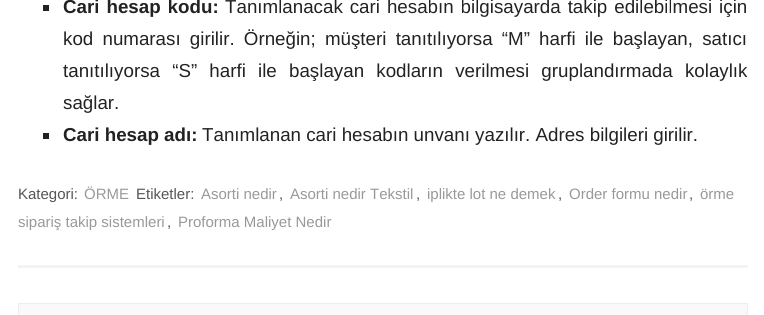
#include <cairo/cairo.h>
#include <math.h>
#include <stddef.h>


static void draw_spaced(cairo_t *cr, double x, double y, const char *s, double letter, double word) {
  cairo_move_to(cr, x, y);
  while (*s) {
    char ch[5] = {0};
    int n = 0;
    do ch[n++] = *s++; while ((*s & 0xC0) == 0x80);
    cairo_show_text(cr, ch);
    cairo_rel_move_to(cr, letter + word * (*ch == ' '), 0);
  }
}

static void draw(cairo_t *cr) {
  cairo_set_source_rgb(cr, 1, 1, 1);
  cairo_paint(cr);
  cairo_set_source_rgb(cr, 243 / 255.0, 243 / 255.0, 243 / 255.0);
  cairo_rectangle(cr, 18, 265, 730, 3);
  cairo_fill(cr);
  cairo_set_source_rgb(cr, 34 / 255.0, 34 / 255.0, 34 / 255.0);
  cairo_rectangle(cr, 43, 5, 6, 6);
  cairo_fill(cr);
  cairo_rectangle(cr, 43, 133, 6, 6);
  cairo_fill(cr);
  cairo_set_source_rgb(cr, 249 / 255.0, 249 / 255.0, 249 / 255.0);
  cairo_rectangle(cr, 18.5, 303.5, 729, 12);
  cairo_fill_preserve(cr);
  cairo_set_source_rgb(cr, 237 / 255.0, 237 / 255.0, 237 / 255.0);
  cairo_set_line_width(cr, 1);
  cairo_stroke(cr);
  cairo_select_font_face(cr, "Liberation Sans", CAIRO_FONT_SLANT_NORMAL, CAIRO_FONT_WEIGHT_BOLD);
  cairo_set_font_size(cr, 18.75);
  cairo_set_source_rgb(cr, 34 / 255.0, 34 / 255.0, 34 / 255.0);
  draw_spaced(cr, 63, 13, "Cari hesap kodu:", 0, 1.75);
  cairo_select_font_face(cr, "Liberation Sans", CAIRO_FONT_SLANT_NORMAL, CAIRO_FONT_WEIGHT_NORMAL);
  draw_spaced(cr, 225, 13, "Tanımlanacak cari hesabın bilgisayarda takip edilebilmesi için", 0, 1.75);
  draw_spaced(cr, 63, 45, "kod numarası girilir. Örneğin; müşteri tanıtılıyorsa “M” harfi ile başlayan, satıcı", 0, 4);
  draw_spaced(cr, 63, 77, "tanıtılıyorsa “S” harfi ile başlayan kodların verilmesi gruplandırmada kolaylık", 0, 7);
  cairo_move_to(cr, 63, 109);
  cairo_show_text(cr, "sağlar.");
  cairo_select_font_face(cr, "Liberation Sans", CAIRO_FONT_SLANT_NORMAL, CAIRO_FONT_WEIGHT_BOLD);
  cairo_move_to(cr, 63, 141);
  cairo_show_text(cr, "Cari hesap adı:");
  cairo_select_font_face(cr, "Liberation Sans", CAIRO_FONT_SLANT_NORMAL, CAIRO_FONT_WEIGHT_NORMAL);
  cairo_move_to(cr, 202, 141);
  cairo_show_text(cr, "Tanımlanan cari hesabın unvanı yazılır. Adres bilgileri girilir.");
  cairo_set_font_size(cr, 15);
  cairo_set_source_rgb(cr, 85 / 255.0, 85 / 255.0, 85 / 255.0);
  cairo_move_to(cr, 18, 199);
  cairo_show_text(cr, "Kategori:");
  cairo_set_source_rgb(cr, 153 / 255.0, 153 / 255.0, 153 / 255.0);
  cairo_move_to(cr, 84, 199);
  cairo_show_text(cr, "ÖRME");
  cairo_set_source_rgb(cr, 85 / 255.0, 85 / 255.0, 85 / 255.0);
  cairo_move_to(cr, 136, 199);
  cairo_show_text(cr, "Etiketler:");
  cairo_set_source_rgb(cr, 153 / 255.0, 153 / 255.0, 153 / 255.0);
  cairo_move_to(cr, 201, 199);
  cairo_show_text(cr, "Asorti nedir");
  cairo_set_source_rgb(cr, 85 / 255.0, 85 / 255.0, 85 / 255.0);
  cairo_move_to(cr, 279, 199);
  cairo_show_text(cr, ",");
  cairo_set_source_rgb(cr, 153 / 255.0, 153 / 255.0, 153 / 255.0);
  cairo_move_to(cr, 290, 199);
  cairo_show_text(cr, "Asorti nedir Tekstil");
  cairo_set_source_rgb(cr, 85 / 255.0, 85 / 255.0, 85 / 255.0);
  cairo_move_to(cr, 416, 199);
  cairo_show_text(cr, ",");
  cairo_set_source_rgb(cr, 153 / 255.0, 153 / 255.0, 153 / 255.0);
  cairo_move_to(cr, 427, 199);
  cairo_show_text(cr, "iplikte lot ne demek");
  cairo_set_source_rgb(cr, 85 / 255.0, 85 / 255.0, 85 / 255.0);
  cairo_move_to(cr, 558, 199);
  cairo_show_text(cr, ",");
  cairo_set_source_rgb(cr, 153 / 255.0, 153 / 255.0, 153 / 255.0);
  cairo_move_to(cr, 569, 199);
  cairo_show_text(cr, "Order formu nedir");
  cairo_set_source_rgb(cr, 85 / 255.0, 85 / 255.0, 85 / 255.0);
  cairo_move_to(cr, 689, 199);
  cairo_show_text(cr, ",");
  cairo_set_source_rgb(cr, 153 / 255.0, 153 / 255.0, 153 / 255.0);
  cairo_move_to(cr, 700, 199);
  cairo_show_text(cr, "örme");
  cairo_move_to(cr, 18, 227);
  cairo_show_text(cr, "sipariş takip sistemleri");
  cairo_set_source_rgb(cr, 85 / 255.0, 85 / 255.0, 85 / 255.0);
  cairo_move_to(cr, 167, 227);
  cairo_show_text(cr, ",");
  cairo_set_source_rgb(cr, 153 / 255.0, 153 / 255.0, 153 / 255.0);
  cairo_move_to(cr, 178, 227);
  cairo_show_text(cr, "Proforma Maliyet Nedir");
}

int main(void) {
  cairo_surface_t *surface = cairo_image_surface_create(CAIRO_FORMAT_RGB24, 764, 315);
  cairo_t *cr = cairo_create(surface);
  cairo_font_options_t *options = cairo_font_options_create();
  cairo_font_options_set_hint_metrics(options, CAIRO_HINT_METRICS_OFF);
  cairo_font_options_set_hint_style(options, CAIRO_HINT_STYLE_NONE);
  cairo_set_font_options(cr, options);
  cairo_set_miter_limit(cr, 4);
  draw(cr);
  cairo_surface_write_to_png(surface, "out.png");
  cairo_font_options_destroy(options);
  cairo_destroy(cr);
  cairo_surface_destroy(surface);
  return 0;
}
